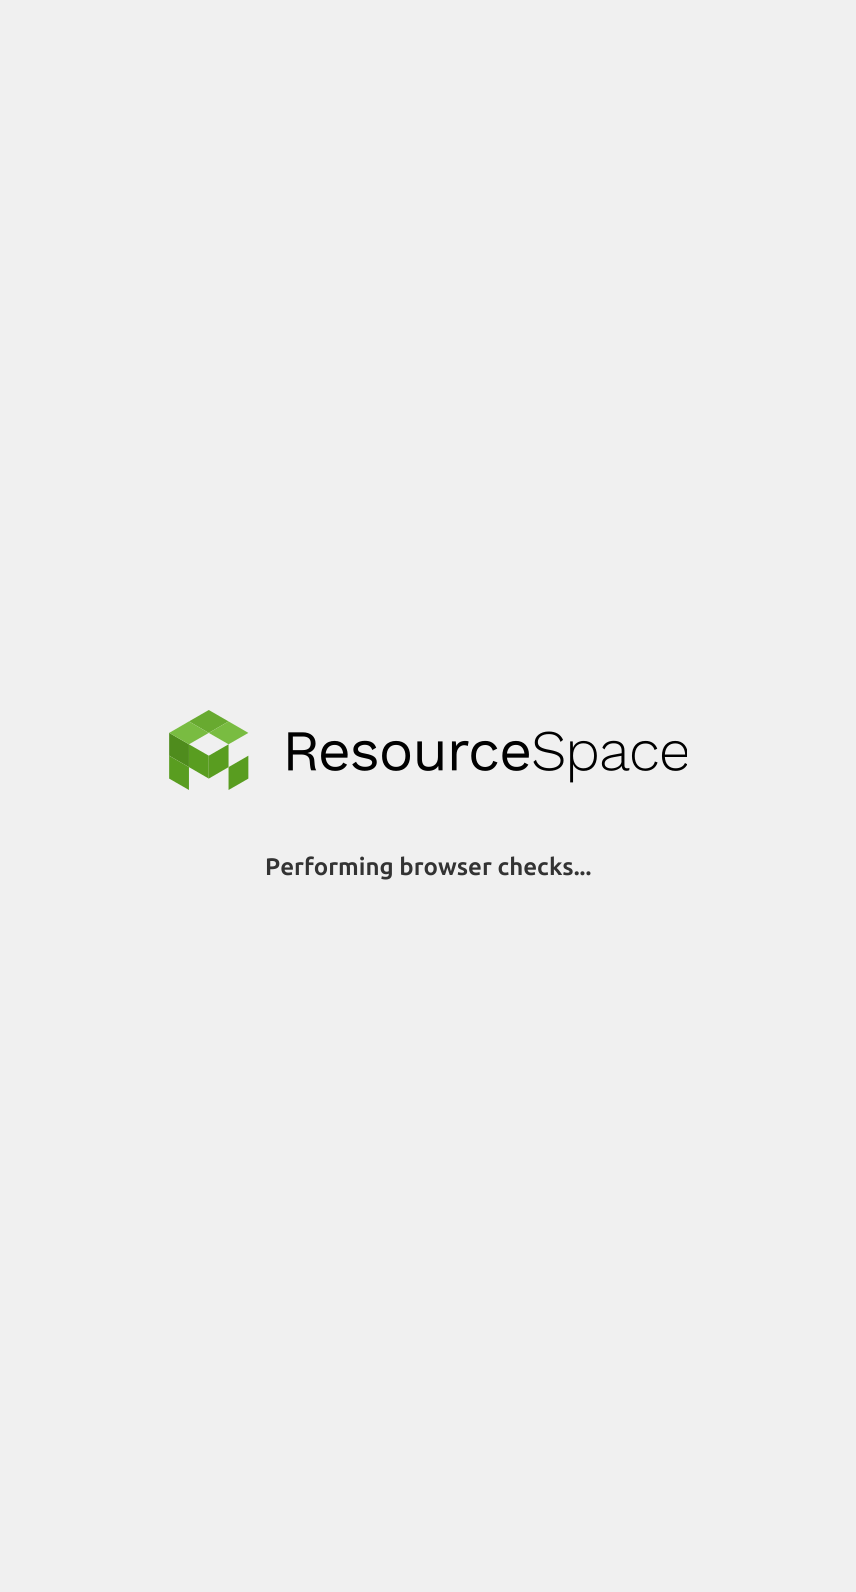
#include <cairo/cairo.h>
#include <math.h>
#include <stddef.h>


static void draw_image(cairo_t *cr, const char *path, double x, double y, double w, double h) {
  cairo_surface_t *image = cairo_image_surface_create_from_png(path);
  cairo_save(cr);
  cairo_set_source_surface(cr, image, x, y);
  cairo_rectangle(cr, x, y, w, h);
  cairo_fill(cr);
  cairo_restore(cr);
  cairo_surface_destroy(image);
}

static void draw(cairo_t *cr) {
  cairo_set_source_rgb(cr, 240 / 255.0, 240 / 255.0, 240 / 255.0);
  cairo_paint(cr);
  draw_image(cr, "images/1.png", 169, 710, 518, 80);
  cairo_select_font_face(cr, "Ubuntu", CAIRO_FONT_SLANT_NORMAL, CAIRO_FONT_WEIGHT_BOLD);
  cairo_set_font_size(cr, 24);
  cairo_set_source_rgb(cr, 51 / 255.0, 51 / 255.0, 51 / 255.0);
  cairo_move_to(cr, 265, 875);
  cairo_show_text(cr, "Performing browser checks...");
}

int main(void) {
  cairo_surface_t *surface = cairo_image_surface_create(CAIRO_FORMAT_RGB24, 856, 1592);
  cairo_t *cr = cairo_create(surface);
  cairo_font_options_t *options = cairo_font_options_create();
  cairo_font_options_set_hint_metrics(options, CAIRO_HINT_METRICS_OFF);
  cairo_font_options_set_hint_style(options, CAIRO_HINT_STYLE_NONE);
  cairo_set_font_options(cr, options);
  cairo_set_miter_limit(cr, 4);
  draw(cr);
  cairo_surface_write_to_png(surface, "out.png");
  cairo_font_options_destroy(options);
  cairo_destroy(cr);
  cairo_surface_destroy(surface);
  return 0;
}
